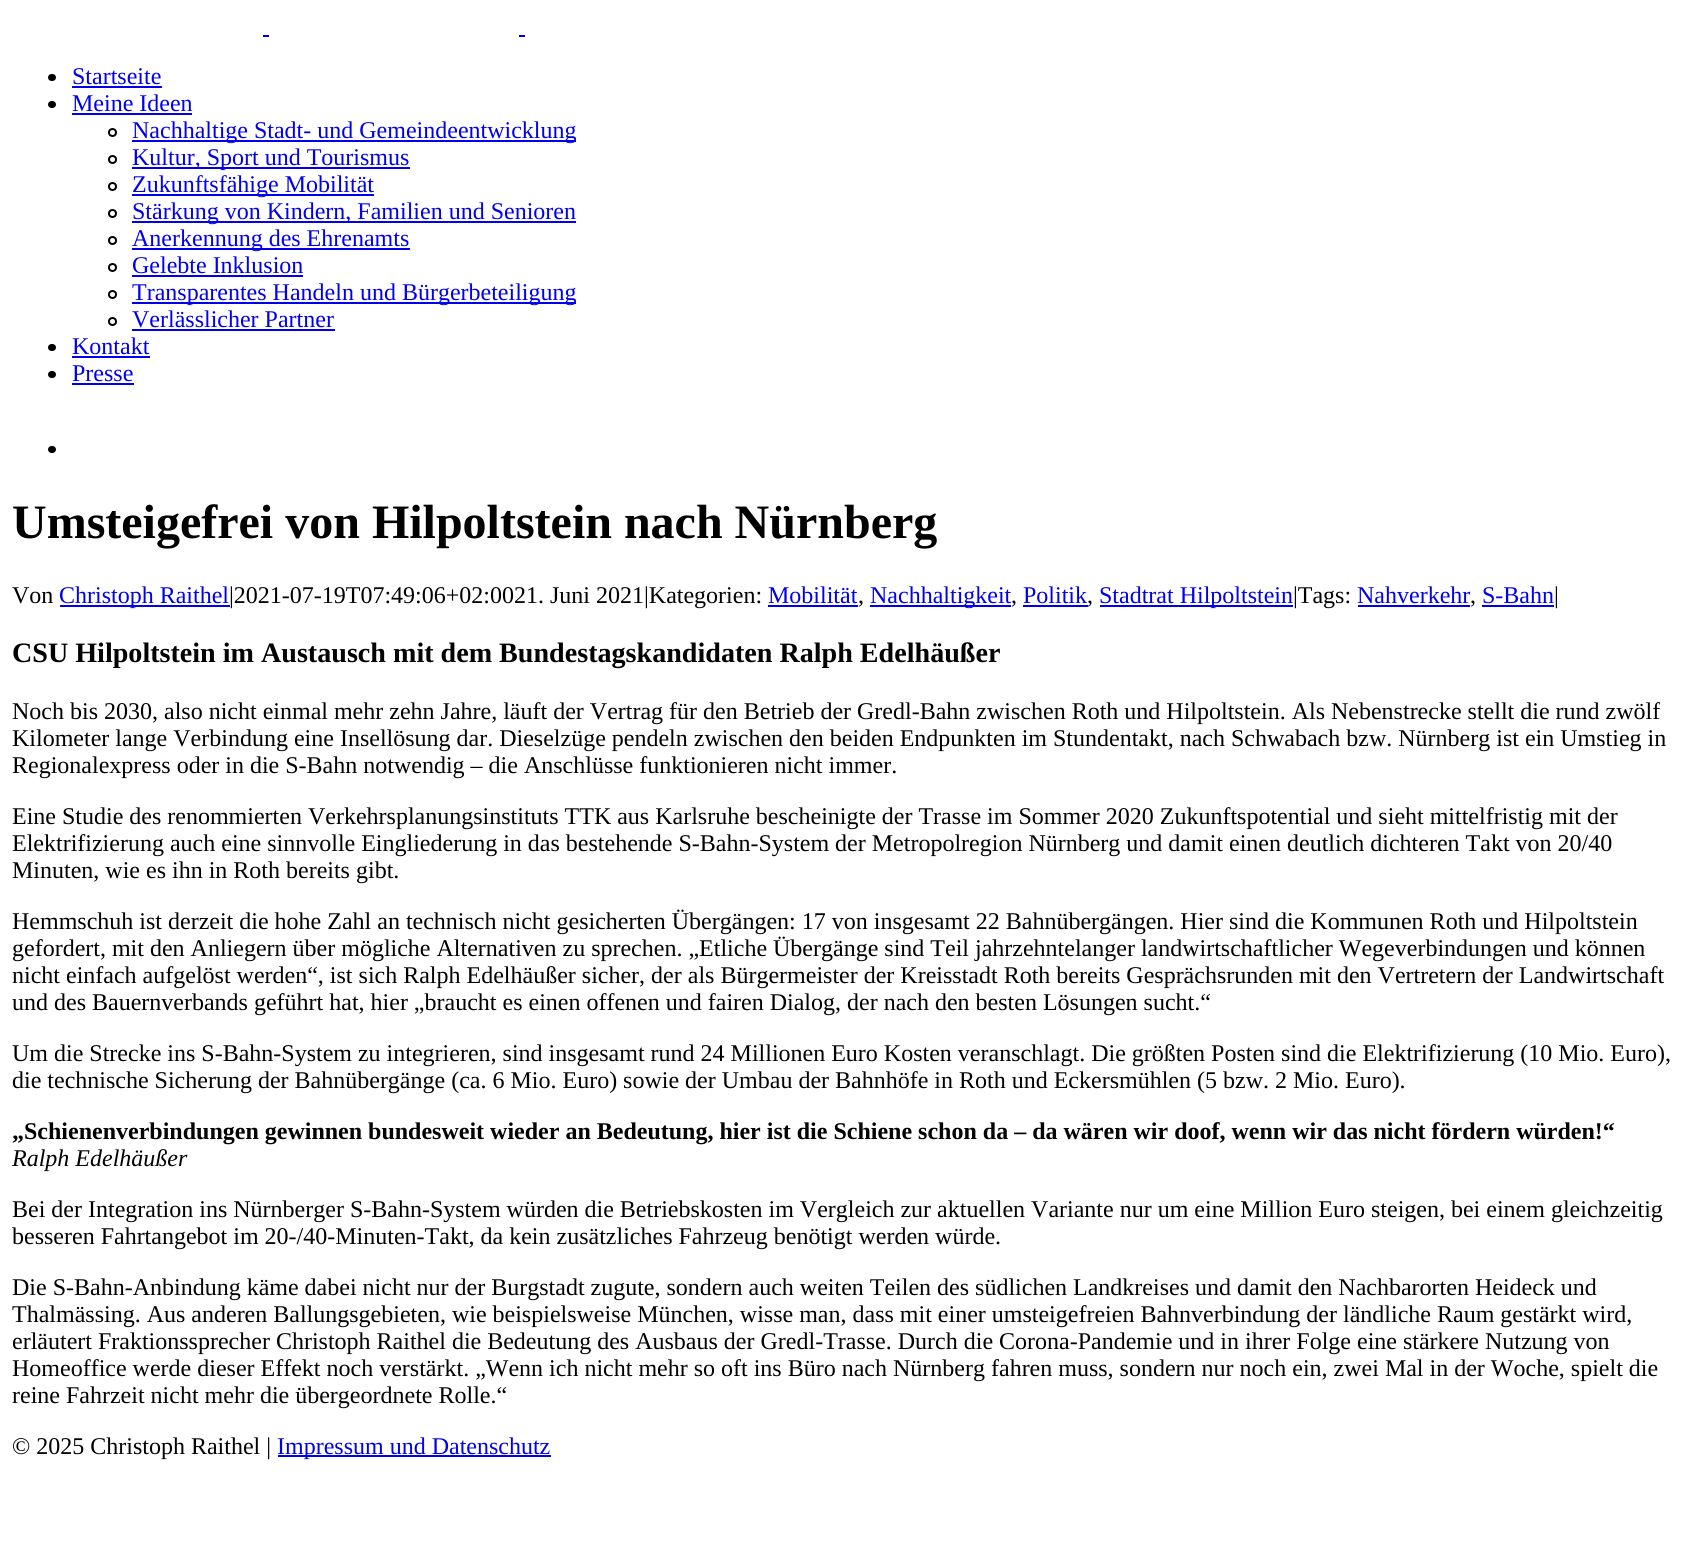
#include <cairo/cairo.h>
#include <math.h>
#include <stddef.h>


static void rounded_rect(cairo_t *cr, double x, double y, double w, double h, double r) {
  cairo_new_sub_path(cr);
  cairo_arc(cr, x + w - r, y + h - r, r, 0, M_PI / 2);
  cairo_arc(cr, x + r, y + h - r, r, M_PI / 2, M_PI);
  cairo_arc(cr, x + r, y + r, r, M_PI, 1.5 * M_PI);
  cairo_arc(cr, x + w - r, y + r, r, 1.5 * M_PI, 2 * M_PI);
  cairo_close_path(cr);
}

static void draw(cairo_t *cr) {
  cairo_set_source_rgb(cr, 1, 1, 1);
  cairo_paint(cr);
  cairo_set_source_rgb(cr, 0, 0, 238 / 255.0);
  cairo_rectangle(cr, 263, 35, 6, 2);
  cairo_fill(cr);
  cairo_rectangle(cr, 519, 35, 6, 2);
  cairo_fill(cr);
  cairo_set_source_rgb(cr, 0, 0, 0);
  rounded_rect(cr, 48, 74, 8, 7, 3.5);
  cairo_fill(cr);
  cairo_set_source_rgb(cr, 0, 0, 238 / 255.0);
  cairo_rectangle(cr, 72, 86, 90, 2);
  cairo_fill(cr);
  cairo_set_source_rgb(cr, 0, 0, 0);
  rounded_rect(cr, 48, 101, 8, 7, 3.5);
  cairo_fill(cr);
  cairo_set_source_rgb(cr, 0, 0, 238 / 255.0);
  cairo_rectangle(cr, 72, 113, 120, 2);
  cairo_fill(cr);
  cairo_arc(cr, 112.5, 132.5, 3.5, 0, 2 * M_PI);
  cairo_set_source_rgb(cr, 0, 0, 0);
  cairo_stroke(cr);
  cairo_set_source_rgb(cr, 0, 0, 238 / 255.0);
  cairo_rectangle(cr, 132, 140, 444, 2);
  cairo_fill(cr);
  cairo_arc(cr, 112.5, 159.5, 3.5, 0, 2 * M_PI);
  cairo_set_source_rgb(cr, 0, 0, 0);
  cairo_stroke(cr);
  cairo_set_source_rgb(cr, 0, 0, 238 / 255.0);
  cairo_rectangle(cr, 132, 167, 278, 2);
  cairo_fill(cr);
  cairo_arc(cr, 112.5, 186.5, 3.5, 0, 2 * M_PI);
  cairo_set_source_rgb(cr, 0, 0, 0);
  cairo_stroke(cr);
  cairo_set_source_rgb(cr, 0, 0, 238 / 255.0);
  cairo_rectangle(cr, 132, 194, 242, 2);
  cairo_fill(cr);
  cairo_arc(cr, 112.5, 213.5, 3.5, 0, 2 * M_PI);
  cairo_set_source_rgb(cr, 0, 0, 0);
  cairo_stroke(cr);
  cairo_set_source_rgb(cr, 0, 0, 238 / 255.0);
  cairo_rectangle(cr, 132, 221, 444, 2);
  cairo_fill(cr);
  cairo_arc(cr, 112.5, 240.5, 3.5, 0, 2 * M_PI);
  cairo_set_source_rgb(cr, 0, 0, 0);
  cairo_stroke(cr);
  cairo_set_source_rgb(cr, 0, 0, 238 / 255.0);
  cairo_rectangle(cr, 132, 248, 278, 2);
  cairo_fill(cr);
  cairo_arc(cr, 112.5, 267.5, 3.5, 0, 2 * M_PI);
  cairo_set_source_rgb(cr, 0, 0, 0);
  cairo_stroke(cr);
  cairo_set_source_rgb(cr, 0, 0, 238 / 255.0);
  cairo_rectangle(cr, 132, 275, 171, 2);
  cairo_fill(cr);
  cairo_arc(cr, 112.5, 294.5, 3.5, 0, 2 * M_PI);
  cairo_set_source_rgb(cr, 0, 0, 0);
  cairo_stroke(cr);
  cairo_set_source_rgb(cr, 0, 0, 238 / 255.0);
  cairo_rectangle(cr, 132, 302, 444, 2);
  cairo_fill(cr);
  cairo_arc(cr, 112.5, 321.5, 3.5, 0, 2 * M_PI);
  cairo_set_source_rgb(cr, 0, 0, 0);
  cairo_stroke(cr);
  cairo_set_source_rgb(cr, 0, 0, 238 / 255.0);
  cairo_rectangle(cr, 132, 329, 203, 2);
  cairo_fill(cr);
  cairo_set_source_rgb(cr, 0, 0, 0);
  rounded_rect(cr, 48, 344, 8, 7, 3.5);
  cairo_fill(cr);
  cairo_set_source_rgb(cr, 0, 0, 238 / 255.0);
  cairo_rectangle(cr, 72, 356, 78, 2);
  cairo_fill(cr);
  cairo_set_source_rgb(cr, 0, 0, 0);
  rounded_rect(cr, 48, 371, 8, 7, 3.5);
  cairo_fill(cr);
  cairo_set_source_rgb(cr, 0, 0, 238 / 255.0);
  cairo_rectangle(cr, 72, 383, 62, 2);
  cairo_fill(cr);
  cairo_set_source_rgb(cr, 0, 0, 0);
  rounded_rect(cr, 48, 446, 8, 7, 3.5);
  cairo_fill(cr);
  cairo_set_source_rgb(cr, 0, 0, 238 / 255.0);
  cairo_rectangle(cr, 60, 605, 170, 2);
  cairo_fill(cr);
  cairo_rectangle(cr, 768, 605, 90, 2);
  cairo_fill(cr);
  cairo_rectangle(cr, 870, 605, 141, 2);
  cairo_fill(cr);
  cairo_rectangle(cr, 1023, 605, 65, 2);
  cairo_fill(cr);
  cairo_rectangle(cr, 1100, 605, 193, 2);
  cairo_fill(cr);
  cairo_rectangle(cr, 1358, 605, 112, 2);
  cairo_fill(cr);
  cairo_rectangle(cr, 1482, 605, 72, 2);
  cairo_fill(cr);
  cairo_rectangle(cr, 278, 1455, 273, 2);
  cairo_fill(cr);
  cairo_select_font_face(cr, "Liberation Serif", CAIRO_FONT_SLANT_NORMAL, CAIRO_FONT_WEIGHT_NORMAL);
  cairo_set_font_size(cr, 24);
  cairo_move_to(cr, 72, 84);
  cairo_show_text(cr, "Startseite");
  cairo_move_to(cr, 72, 111);
  cairo_show_text(cr, "Meine Ideen");
  cairo_move_to(cr, 132, 138);
  cairo_show_text(cr, "Nachhaltige Stadt- und Gemeindeentwicklung");
  cairo_move_to(cr, 132, 165);
  cairo_show_text(cr, "Kultur, Sport und Tourismus");
  cairo_move_to(cr, 132, 192);
  cairo_show_text(cr, "Zukunftsfähige Mobilität");
  cairo_move_to(cr, 132, 219);
  cairo_show_text(cr, "Stärkung von Kindern, Familien und Senioren");
  cairo_move_to(cr, 132, 246);
  cairo_show_text(cr, "Anerkennung des Ehrenamts");
  cairo_move_to(cr, 132, 273);
  cairo_show_text(cr, "Gelebte Inklusion");
  cairo_move_to(cr, 132, 300);
  cairo_show_text(cr, "Transparentes Handeln und Bürgerbeteiligung");
  cairo_move_to(cr, 132, 327);
  cairo_show_text(cr, "Verlässlicher Partner");
  cairo_move_to(cr, 72, 354);
  cairo_show_text(cr, "Kontakt");
  cairo_move_to(cr, 72, 381);
  cairo_show_text(cr, "Presse");
  cairo_select_font_face(cr, "Liberation Serif", CAIRO_FONT_SLANT_NORMAL, CAIRO_FONT_WEIGHT_BOLD);
  cairo_set_font_size(cr, 48);
  cairo_set_source_rgb(cr, 0, 0, 0);
  cairo_move_to(cr, 12, 538);
  cairo_show_text(cr, "Umsteigefrei von Hilpoltstein nach Nürnberg");
  cairo_select_font_face(cr, "Liberation Serif", CAIRO_FONT_SLANT_NORMAL, CAIRO_FONT_WEIGHT_NORMAL);
  cairo_set_font_size(cr, 24);
  cairo_move_to(cr, 12, 603);
  cairo_show_text(cr, "Von");
  cairo_set_source_rgb(cr, 0, 0, 238 / 255.0);
  cairo_move_to(cr, 59, 603);
  cairo_show_text(cr, "Christoph Raithel");
  cairo_set_source_rgb(cr, 0, 0, 0);
  cairo_move_to(cr, 229, 603);
  cairo_show_text(cr, "|2021-07-19T07:49:06+02:0021. Juni 2021|Kategorien:");
  cairo_set_source_rgb(cr, 0, 0, 238 / 255.0);
  cairo_move_to(cr, 768, 603);
  cairo_show_text(cr, "Mobilität");
  cairo_set_source_rgb(cr, 0, 0, 0);
  cairo_move_to(cr, 858, 603);
  cairo_show_text(cr, ",");
  cairo_set_source_rgb(cr, 0, 0, 238 / 255.0);
  cairo_move_to(cr, 870, 603);
  cairo_show_text(cr, "Nachhaltigkeit");
  cairo_set_source_rgb(cr, 0, 0, 0);
  cairo_move_to(cr, 1011, 603);
  cairo_show_text(cr, ",");
  cairo_set_source_rgb(cr, 0, 0, 238 / 255.0);
  cairo_move_to(cr, 1023, 603);
  cairo_show_text(cr, "Politik");
  cairo_set_source_rgb(cr, 0, 0, 0);
  cairo_move_to(cr, 1087, 603);
  cairo_show_text(cr, ",");
  cairo_set_source_rgb(cr, 0, 0, 238 / 255.0);
  cairo_move_to(cr, 1099, 603);
  cairo_show_text(cr, "Stadtrat Hilpoltstein");
  cairo_set_source_rgb(cr, 0, 0, 0);
  cairo_move_to(cr, 1293, 603);
  cairo_show_text(cr, "|Tags:");
  cairo_set_source_rgb(cr, 0, 0, 238 / 255.0);
  cairo_move_to(cr, 1357, 603);
  cairo_show_text(cr, "Nahverkehr");
  cairo_set_source_rgb(cr, 0, 0, 0);
  cairo_move_to(cr, 1470, 603);
  cairo_show_text(cr, ",");
  cairo_set_source_rgb(cr, 0, 0, 238 / 255.0);
  cairo_move_to(cr, 1482, 603);
  cairo_show_text(cr, "S-Bahn");
  cairo_set_source_rgb(cr, 0, 0, 0);
  cairo_move_to(cr, 1554, 603);
  cairo_show_text(cr, "|");
  cairo_select_font_face(cr, "Liberation Serif", CAIRO_FONT_SLANT_NORMAL, CAIRO_FONT_WEIGHT_BOLD);
  cairo_set_font_size(cr, 28.1);
  cairo_move_to(cr, 12, 662);
  cairo_show_text(cr, "CSU Hilpoltstein im Austausch mit dem Bundestagskandidaten Ralph Edelhäußer");
  cairo_select_font_face(cr, "Liberation Serif", CAIRO_FONT_SLANT_NORMAL, CAIRO_FONT_WEIGHT_NORMAL);
  cairo_set_font_size(cr, 24);
  cairo_move_to(cr, 12, 719);
  cairo_show_text(cr, "Noch bis 2030, also nicht einmal mehr zehn Jahre, läuft der Vertrag für den Betrieb der Gredl-Bahn zwischen Roth und Hilpoltstein. Als Nebenstrecke stellt die rund zwölf");
  cairo_move_to(cr, 12, 746);
  cairo_show_text(cr, "Kilometer lange Verbindung eine Insellösung dar. Dieselzüge pendeln zwischen den beiden Endpunkten im Stundentakt, nach Schwabach bzw. Nürnberg ist ein Umstieg in");
  cairo_move_to(cr, 12, 773);
  cairo_show_text(cr, "Regionalexpress oder in die S-Bahn notwendig – die Anschlüsse funktionieren nicht immer.");
  cairo_move_to(cr, 12, 824);
  cairo_show_text(cr, "Eine Studie des renommierten Verkehrsplanungsinstituts TTK aus Karlsruhe bescheinigte der Trasse im Sommer 2020 Zukunftspotential und sieht mittelfristig mit der");
  cairo_move_to(cr, 12, 851);
  cairo_show_text(cr, "Elektrifizierung auch eine sinnvolle Eingliederung in das bestehende S-Bahn-System der Metropolregion Nürnberg und damit einen deutlich dichteren Takt von 20/40");
  cairo_move_to(cr, 12, 878);
  cairo_show_text(cr, "Minuten, wie es ihn in Roth bereits gibt.");
  cairo_move_to(cr, 12, 929);
  cairo_show_text(cr, "Hemmschuh ist derzeit die hohe Zahl an technisch nicht gesicherten Übergängen: 17 von insgesamt 22 Bahnübergängen. Hier sind die Kommunen Roth und Hilpoltstein");
  cairo_move_to(cr, 12, 956);
  cairo_show_text(cr, "gefordert, mit den Anliegern über mögliche Alternativen zu sprechen. „Etliche Übergänge sind Teil jahrzehntelanger landwirtschaftlicher Wegeverbindungen und können");
  cairo_move_to(cr, 12, 983);
  cairo_show_text(cr, "nicht einfach aufgelöst werden“, ist sich Ralph Edelhäußer sicher, der als Bürgermeister der Kreisstadt Roth bereits Gesprächsrunden mit den Vertretern der Landwirtschaft");
  cairo_move_to(cr, 12, 1010);
  cairo_show_text(cr, "und des Bauernverbands geführt hat, hier „braucht es einen offenen und fairen Dialog, der nach den besten Lösungen sucht.“");
  cairo_move_to(cr, 12, 1061);
  cairo_show_text(cr, "Um die Strecke ins S-Bahn-System zu integrieren, sind insgesamt rund 24 Millionen Euro Kosten veranschlagt. Die größten Posten sind die Elektrifizierung (10 Mio. Euro),");
  cairo_move_to(cr, 12, 1088);
  cairo_show_text(cr, "die technische Sicherung der Bahnübergänge (ca. 6 Mio. Euro) sowie der Umbau der Bahnhöfe in Roth und Eckersmühlen (5 bzw. 2 Mio. Euro).");
  cairo_select_font_face(cr, "Liberation Serif", CAIRO_FONT_SLANT_NORMAL, CAIRO_FONT_WEIGHT_BOLD);
  cairo_move_to(cr, 12, 1139);
  cairo_show_text(cr, "„Schienenverbindungen gewinnen bundesweit wieder an Bedeutung, hier ist die Schiene schon da – da wären wir doof, wenn wir das nicht fördern würden!“");
  cairo_select_font_face(cr, "Liberation Serif", CAIRO_FONT_SLANT_ITALIC, CAIRO_FONT_WEIGHT_NORMAL);
  cairo_move_to(cr, 12, 1166);
  cairo_show_text(cr, "Ralph Edelhäußer");
  cairo_select_font_face(cr, "Liberation Serif", CAIRO_FONT_SLANT_NORMAL, CAIRO_FONT_WEIGHT_NORMAL);
  cairo_move_to(cr, 12, 1217);
  cairo_show_text(cr, "Bei der Integration ins Nürnberger S-Bahn-System würden die Betriebskosten im Vergleich zur aktuellen Variante nur um eine Million Euro steigen, bei einem gleichzeitig");
  cairo_move_to(cr, 12, 1244);
  cairo_show_text(cr, "besseren Fahrtangebot im 20-/40-Minuten-Takt, da kein zusätzliches Fahrzeug benötigt werden würde.");
  cairo_move_to(cr, 12, 1295);
  cairo_show_text(cr, "Die S-Bahn-Anbindung käme dabei nicht nur der Burgstadt zugute, sondern auch weiten Teilen des südlichen Landkreises und damit den Nachbarorten Heideck und");
  cairo_move_to(cr, 12, 1322);
  cairo_show_text(cr, "Thalmässing. Aus anderen Ballungsgebieten, wie beispielsweise München, wisse man, dass mit einer umsteigefreien Bahnverbindung der ländliche Raum gestärkt wird,");
  cairo_move_to(cr, 12, 1349);
  cairo_show_text(cr, "erläutert Fraktionssprecher Christoph Raithel die Bedeutung des Ausbaus der Gredl-Trasse. Durch die Corona-Pandemie und in ihrer Folge eine stärkere Nutzung von");
  cairo_move_to(cr, 12, 1376);
  cairo_show_text(cr, "Homeoffice werde dieser Effekt noch verstärkt. „Wenn ich nicht mehr so oft ins Büro nach Nürnberg fahren muss, sondern nur noch ein, zwei Mal in der Woche, spielt die");
  cairo_move_to(cr, 12, 1403);
  cairo_show_text(cr, "reine Fahrzeit nicht mehr die übergeordnete Rolle.“");
  cairo_move_to(cr, 12, 1454);
  cairo_show_text(cr, "© 2025 Christoph Raithel |");
  cairo_set_source_rgb(cr, 0, 0, 238 / 255.0);
  cairo_move_to(cr, 277, 1454);
  cairo_show_text(cr, "Impressum und Datenschutz");
}

int main(void) {
  cairo_surface_t *surface = cairo_image_surface_create(CAIRO_FORMAT_RGB24, 1682, 1562);
  cairo_t *cr = cairo_create(surface);
  cairo_font_options_t *options = cairo_font_options_create();
  cairo_font_options_set_hint_metrics(options, CAIRO_HINT_METRICS_OFF);
  cairo_font_options_set_hint_style(options, CAIRO_HINT_STYLE_NONE);
  cairo_set_font_options(cr, options);
  cairo_set_miter_limit(cr, 4);
  draw(cr);
  cairo_surface_write_to_png(surface, "out.png");
  cairo_font_options_destroy(options);
  cairo_destroy(cr);
  cairo_surface_destroy(surface);
  return 0;
}
